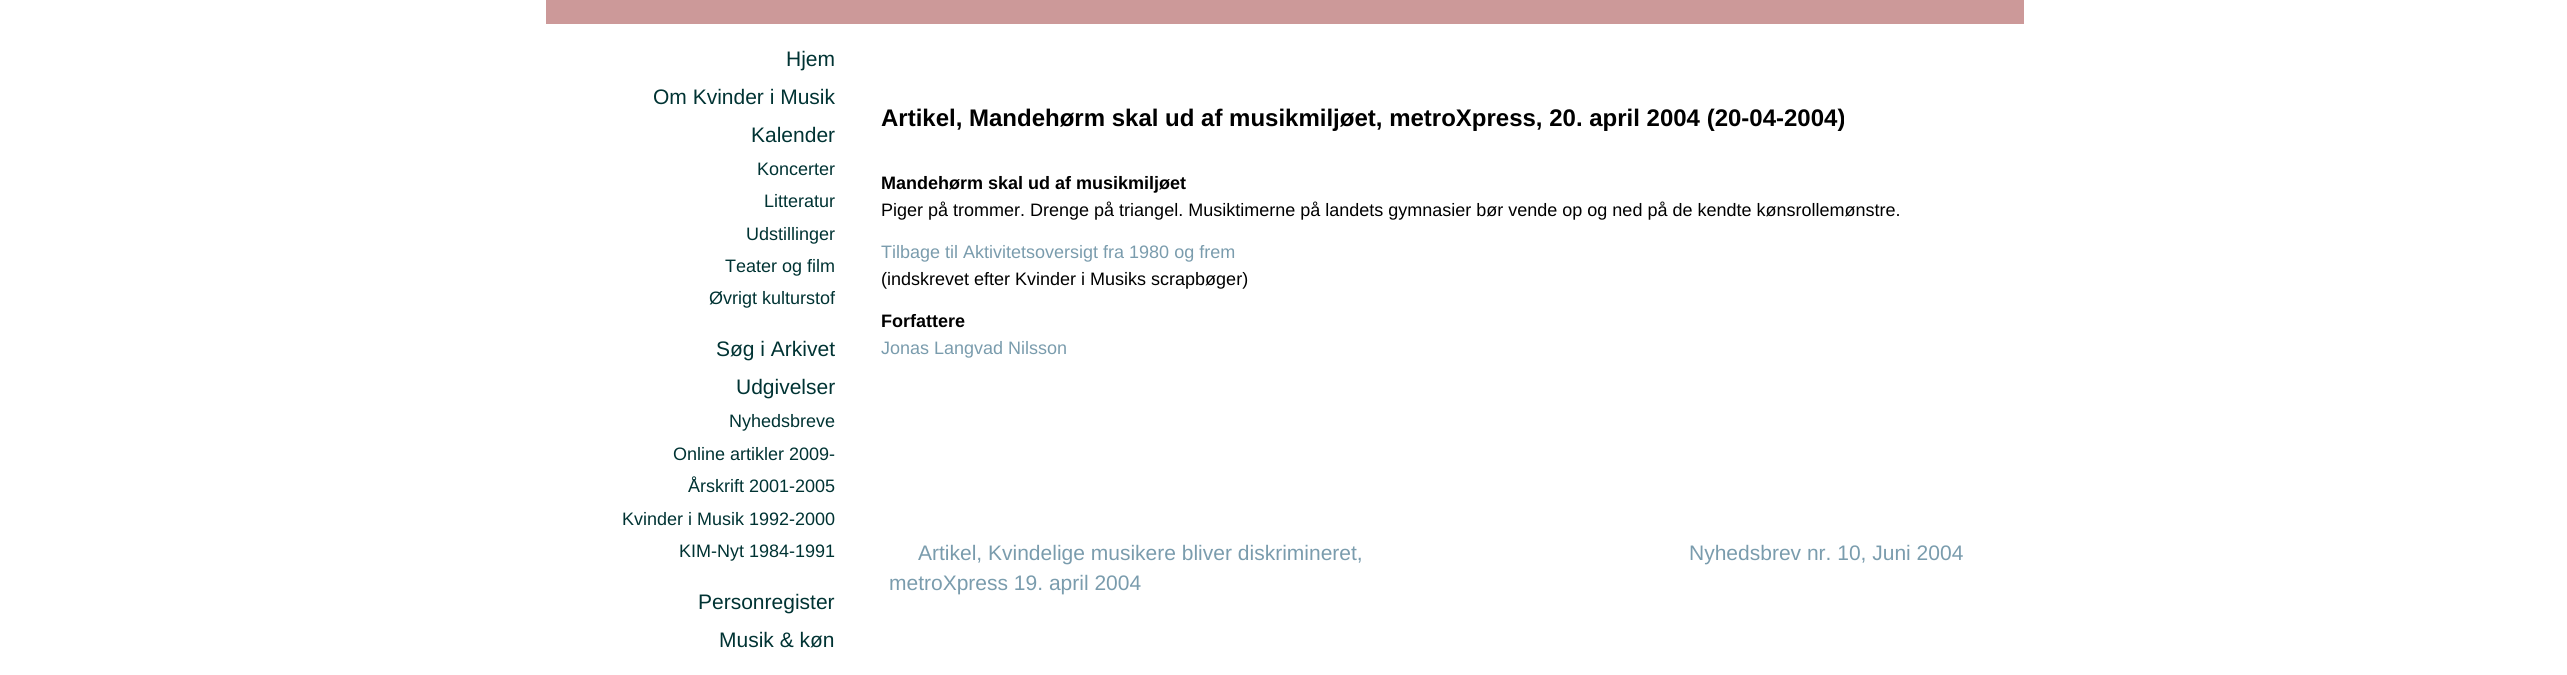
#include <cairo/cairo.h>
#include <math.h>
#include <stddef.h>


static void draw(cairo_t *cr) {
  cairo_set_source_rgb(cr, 1, 1, 1);
  cairo_paint(cr);
  cairo_set_source_rgb(cr, 204 / 255.0, 153 / 255.0, 153 / 255.0);
  cairo_rectangle(cr, 546, 0, 1478, 24);
  cairo_fill(cr);
  cairo_select_font_face(cr, "Liberation Sans", CAIRO_FONT_SLANT_NORMAL, CAIRO_FONT_WEIGHT_NORMAL);
  cairo_set_font_size(cr, 21);
  cairo_set_source_rgb(cr, 0, 51 / 255.0, 51 / 255.0);
  cairo_move_to(cr, 786, 66);
  cairo_show_text(cr, "Hjem");
  cairo_move_to(cr, 653, 104);
  cairo_show_text(cr, "Om Kvinder i Musik");
  cairo_move_to(cr, 751, 142);
  cairo_show_text(cr, "Kalender");
  cairo_set_font_size(cr, 18);
  cairo_move_to(cr, 757, 175);
  cairo_show_text(cr, "Koncerter");
  cairo_move_to(cr, 764, 207);
  cairo_show_text(cr, "Litteratur");
  cairo_move_to(cr, 746, 240);
  cairo_show_text(cr, "Udstillinger");
  cairo_move_to(cr, 725, 272);
  cairo_show_text(cr, "Teater og film");
  cairo_move_to(cr, 709, 304);
  cairo_show_text(cr, "Øvrigt kulturstof");
  cairo_set_font_size(cr, 21);
  cairo_move_to(cr, 716, 356);
  cairo_show_text(cr, "Søg i Arkivet");
  cairo_move_to(cr, 736, 394);
  cairo_show_text(cr, "Udgivelser");
  cairo_set_font_size(cr, 18);
  cairo_move_to(cr, 729, 427);
  cairo_show_text(cr, "Nyhedsbreve");
  cairo_move_to(cr, 673, 460);
  cairo_show_text(cr, "Online artikler 2009-");
  cairo_move_to(cr, 688, 492);
  cairo_show_text(cr, "Årskrift 2001-2005");
  cairo_move_to(cr, 622, 525);
  cairo_show_text(cr, "Kvinder i Musik 1992-2000");
  cairo_move_to(cr, 679, 557);
  cairo_show_text(cr, "KIM-Nyt 1984-1991");
  cairo_set_font_size(cr, 21);
  cairo_move_to(cr, 698, 609);
  cairo_show_text(cr, "Personregister");
  cairo_move_to(cr, 719, 647);
  cairo_show_text(cr, "Musik & køn");
  cairo_select_font_face(cr, "Liberation Sans", CAIRO_FONT_SLANT_NORMAL, CAIRO_FONT_WEIGHT_BOLD);
  cairo_set_font_size(cr, 24);
  cairo_set_source_rgb(cr, 0, 0, 0);
  cairo_move_to(cr, 881, 126);
  cairo_show_text(cr, "Artikel, Mandehørm skal ud af musikmiljøet, metroXpress, 20. april 2004 (20-04-2004)");
  cairo_set_font_size(cr, 18);
  cairo_move_to(cr, 881, 189);
  cairo_show_text(cr, "Mandehørm skal ud af musikmiljøet");
  cairo_select_font_face(cr, "Liberation Sans", CAIRO_FONT_SLANT_NORMAL, CAIRO_FONT_WEIGHT_NORMAL);
  cairo_move_to(cr, 881, 216);
  cairo_show_text(cr, "Piger på trommer. Drenge på triangel. Musiktimerne på landets gymnasier bør vende op og ned på de kendte kønsrollemønstre.");
  cairo_set_source_rgb(cr, 122 / 255.0, 156 / 255.0, 173 / 255.0);
  cairo_move_to(cr, 881, 258);
  cairo_show_text(cr, "Tilbage til Aktivitetsoversigt fra 1980 og frem");
  cairo_set_source_rgb(cr, 0, 0, 0);
  cairo_move_to(cr, 881, 285);
  cairo_show_text(cr, "(indskrevet efter Kvinder i Musiks scrapbøger)");
  cairo_select_font_face(cr, "Liberation Sans", CAIRO_FONT_SLANT_NORMAL, CAIRO_FONT_WEIGHT_BOLD);
  cairo_move_to(cr, 881, 327);
  cairo_show_text(cr, "Forfattere");
  cairo_select_font_face(cr, "Liberation Sans", CAIRO_FONT_SLANT_NORMAL, CAIRO_FONT_WEIGHT_NORMAL);
  cairo_set_source_rgb(cr, 122 / 255.0, 156 / 255.0, 173 / 255.0);
  cairo_move_to(cr, 881, 354);
  cairo_show_text(cr, "Jonas Langvad Nilsson");
  cairo_set_font_size(cr, 21);
  cairo_move_to(cr, 918, 560);
  cairo_show_text(cr, "Artikel, Kvindelige musikere bliver diskrimineret,");
  cairo_move_to(cr, 889, 590);
  cairo_show_text(cr, "metroXpress 19. april 2004");
  cairo_move_to(cr, 1689, 560);
  cairo_show_text(cr, "Nyhedsbrev nr. 10, Juni 2004");
}

int main(void) {
  cairo_surface_t *surface = cairo_image_surface_create(CAIRO_FORMAT_RGB24, 2567, 675);
  cairo_t *cr = cairo_create(surface);
  cairo_font_options_t *options = cairo_font_options_create();
  cairo_font_options_set_hint_metrics(options, CAIRO_HINT_METRICS_OFF);
  cairo_font_options_set_hint_style(options, CAIRO_HINT_STYLE_NONE);
  cairo_set_font_options(cr, options);
  cairo_set_miter_limit(cr, 4);
  draw(cr);
  cairo_surface_write_to_png(surface, "out.png");
  cairo_font_options_destroy(options);
  cairo_destroy(cr);
  cairo_surface_destroy(surface);
  return 0;
}
